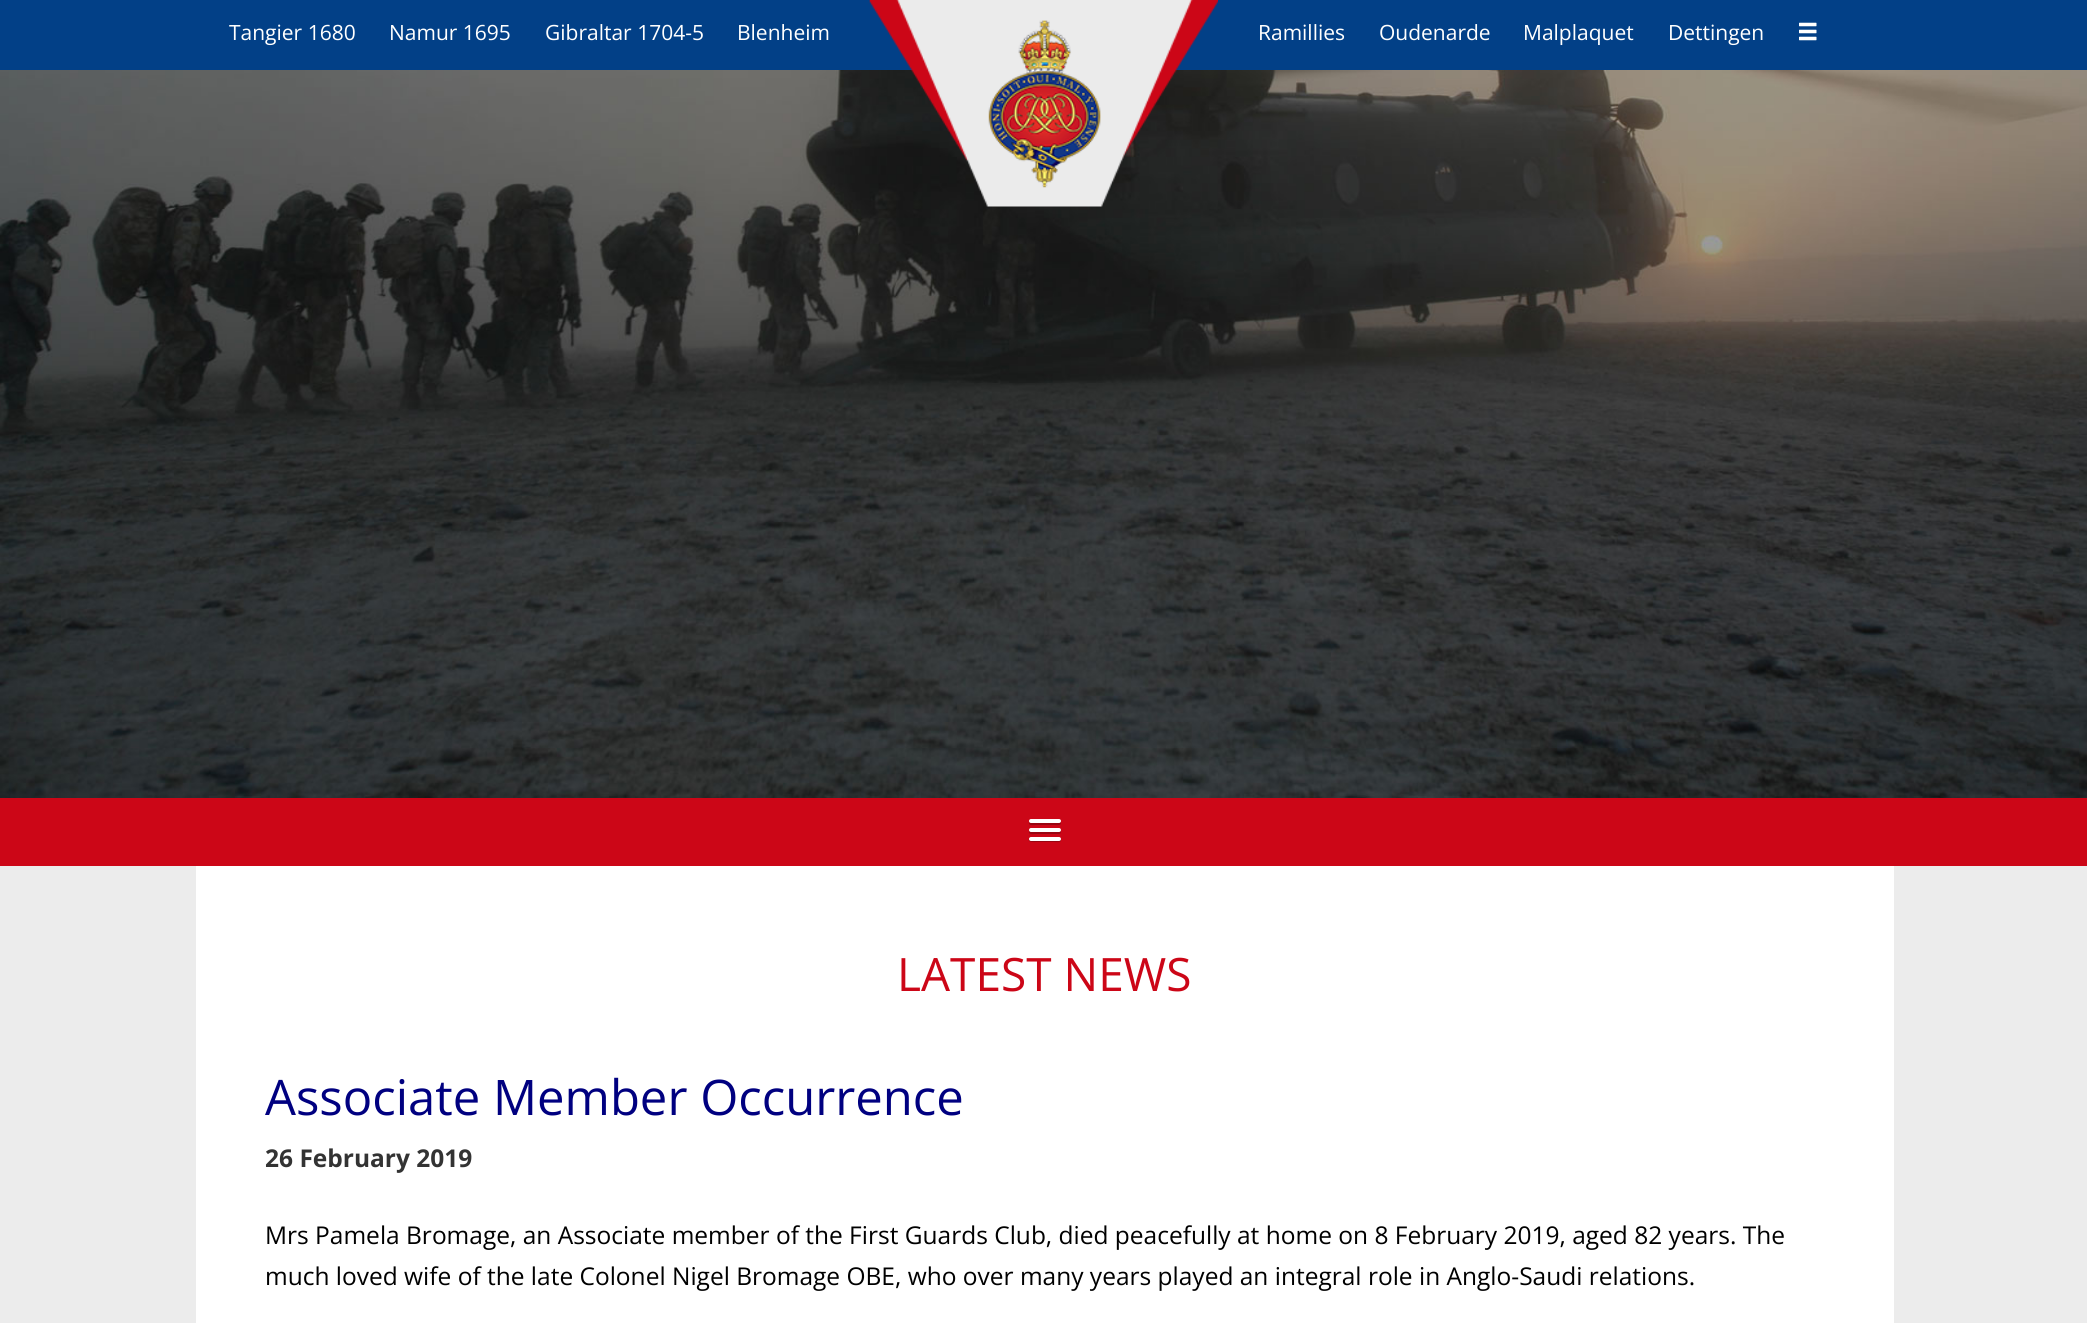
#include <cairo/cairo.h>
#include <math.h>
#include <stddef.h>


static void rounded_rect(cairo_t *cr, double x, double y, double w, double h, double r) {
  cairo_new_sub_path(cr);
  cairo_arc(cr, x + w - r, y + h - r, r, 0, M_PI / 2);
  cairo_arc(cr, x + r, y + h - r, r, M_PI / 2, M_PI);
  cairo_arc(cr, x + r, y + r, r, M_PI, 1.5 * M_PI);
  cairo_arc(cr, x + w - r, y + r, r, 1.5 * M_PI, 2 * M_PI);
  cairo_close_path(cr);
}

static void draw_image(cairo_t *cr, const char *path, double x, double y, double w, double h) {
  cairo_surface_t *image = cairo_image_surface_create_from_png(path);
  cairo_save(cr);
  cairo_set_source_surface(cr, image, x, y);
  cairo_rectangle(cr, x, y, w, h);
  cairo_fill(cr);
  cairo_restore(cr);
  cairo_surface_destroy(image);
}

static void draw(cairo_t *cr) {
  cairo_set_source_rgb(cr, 236 / 255.0, 236 / 255.0, 236 / 255.0);
  cairo_paint(cr);
  cairo_set_source_rgb(cr, 2 / 255.0, 64 / 255.0, 135 / 255.0);
  cairo_rectangle(cr, 0, 0, 870, 70);
  cairo_fill(cr);
  cairo_rectangle(cr, 870, 1, 348, 69);
  cairo_fill(cr);
  draw_image(cr, "images/3.png", 0, 70, 2087, 728);
  draw_image(cr, "images/1.png", 869, 0, 349, 207);
  cairo_rectangle(cr, 1218, 0, 869, 70);
  cairo_fill(cr);
  draw_image(cr, "images/2.png", 1799, 22, 18, 19);
  cairo_set_source_rgb(cr, 204 / 255.0, 6 / 255.0, 23 / 255.0);
  cairo_rectangle(cr, 0, 798, 2087, 68);
  cairo_fill(cr);
  cairo_set_source_rgb(cr, 153 / 255.0, 5 / 255.0, 17 / 255.0);
  cairo_new_path(cr);
  cairo_move_to(cr, 1029.5, 822);
  cairo_line_to(cr, 1029, 823.5);
  cairo_curve_to(cr, 1029.5, 826, 1034.5, 825, 1035.5, 825);
  cairo_line_to(cr, 1054.5, 825);
  cairo_curve_to(cr, 1056, 825, 1061, 826, 1061, 823);
  cairo_line_to(cr, 1060.5, 821.5);
  cairo_curve_to(cr, 1060, 822, 1059.5, 822.5, 1059, 822.5);
  cairo_line_to(cr, 1030.5, 822.5);
  cairo_close_path(cr);
  cairo_fill(cr);
  cairo_set_source_rgb(cr, 1, 1, 1);
  rounded_rect(cr, 1029, 819, 32, 4, 2);
  cairo_fill(cr);
  cairo_set_source_rgb(cr, 153 / 255.0, 5 / 255.0, 17 / 255.0);
  cairo_new_path(cr);
  cairo_move_to(cr, 1029.5, 830.5);
  cairo_curve_to(cr, 1029, 831, 1029, 832, 1029, 832.5);
  cairo_curve_to(cr, 1029.5, 835, 1034.5, 834, 1035.5, 834);
  cairo_line_to(cr, 1059, 834);
  cairo_curve_to(cr, 1061, 834, 1061.5, 831.5, 1060, 830.5);
  cairo_line_to(cr, 1059, 831);
  cairo_line_to(cr, 1030.5, 831);
  cairo_close_path(cr);
  cairo_fill(cr);
  cairo_set_source_rgb(cr, 1, 1, 1);
  rounded_rect(cr, 1029, 828, 32, 4, 2);
  cairo_fill(cr);
  cairo_set_source_rgb(cr, 153 / 255.0, 5 / 255.0, 17 / 255.0);
  cairo_new_path(cr);
  cairo_move_to(cr, 1029, 839);
  cairo_curve_to(cr, 1027.5, 843, 1035, 842, 1035.5, 842);
  cairo_line_to(cr, 1054.5, 842);
  cairo_curve_to(cr, 1055.5, 842, 1060.5, 843, 1061, 840.5);
  cairo_curve_to(cr, 1061, 840, 1061, 839, 1060.5, 838.5);
  cairo_curve_to(cr, 1060.5, 839.5, 1059.5, 840, 1059, 840);
  cairo_line_to(cr, 1031, 840);
  cairo_curve_to(cr, 1030, 840, 1029.5, 839.5, 1029, 839);
  cairo_close_path(cr);
  cairo_fill(cr);
  cairo_set_source_rgb(cr, 1, 1, 1);
  rounded_rect(cr, 1029, 837, 32, 4, 2);
  cairo_fill(cr);
  cairo_rectangle(cr, 196, 866, 1698, 457);
  cairo_fill(cr);
  cairo_select_font_face(cr, "Open Sans", CAIRO_FONT_SLANT_NORMAL, CAIRO_FONT_WEIGHT_NORMAL);
  cairo_set_font_size(cr, 21);
  cairo_move_to(cr, 229, 40);
  cairo_show_text(cr, "Tangier 1680");
  cairo_move_to(cr, 389, 40);
  cairo_show_text(cr, "Namur 1695");
  cairo_move_to(cr, 545, 40);
  cairo_show_text(cr, "Gibraltar 1704-5");
  cairo_move_to(cr, 737, 40);
  cairo_show_text(cr, "Blenheim");
  cairo_move_to(cr, 1258, 40);
  cairo_show_text(cr, "Ramillies");
  cairo_move_to(cr, 1379, 40);
  cairo_show_text(cr, "Oudenarde");
  cairo_move_to(cr, 1523, 40);
  cairo_show_text(cr, "Malplaquet");
  cairo_move_to(cr, 1668, 40);
  cairo_show_text(cr, "Dettingen");
  cairo_set_font_size(cr, 46);
  cairo_set_source_rgb(cr, 204 / 255.0, 6 / 255.0, 23 / 255.0);
  cairo_move_to(cr, 897, 991);
  cairo_show_text(cr, "LATEST NEWS");
  cairo_set_font_size(cr, 49);
  cairo_set_source_rgb(cr, 0, 0, 128 / 255.0);
  cairo_move_to(cr, 265, 1115);
  cairo_show_text(cr, "Associate Member Occurrence");
  cairo_select_font_face(cr, "Open Sans", CAIRO_FONT_SLANT_NORMAL, CAIRO_FONT_WEIGHT_BOLD);
  cairo_set_font_size(cr, 24.5);
  cairo_set_source_rgb(cr, 51 / 255.0, 51 / 255.0, 51 / 255.0);
  cairo_move_to(cr, 265, 1167);
  cairo_show_text(cr, "26 February 2019");
  cairo_select_font_face(cr, "Open Sans", CAIRO_FONT_SLANT_NORMAL, CAIRO_FONT_WEIGHT_NORMAL);
  cairo_set_source_rgb(cr, 0, 0, 0);
  cairo_move_to(cr, 265, 1244);
  cairo_show_text(cr, "Mrs Pamela Bromage, an Associate member of the First Guards Club, died peacefully at home on 8 February 2019, aged 82 years. The");
  cairo_move_to(cr, 265, 1285);
  cairo_show_text(cr, "much loved wife of the late Colonel Nigel Bromage OBE, who over many years played an integral role in Anglo-Saudi relations.");
}

int main(void) {
  cairo_surface_t *surface = cairo_image_surface_create(CAIRO_FORMAT_RGB24, 2087, 1323);
  cairo_t *cr = cairo_create(surface);
  cairo_font_options_t *options = cairo_font_options_create();
  cairo_font_options_set_hint_metrics(options, CAIRO_HINT_METRICS_OFF);
  cairo_font_options_set_hint_style(options, CAIRO_HINT_STYLE_NONE);
  cairo_set_font_options(cr, options);
  cairo_set_miter_limit(cr, 4);
  draw(cr);
  cairo_surface_write_to_png(surface, "out.png");
  cairo_font_options_destroy(options);
  cairo_destroy(cr);
  cairo_surface_destroy(surface);
  return 0;
}
